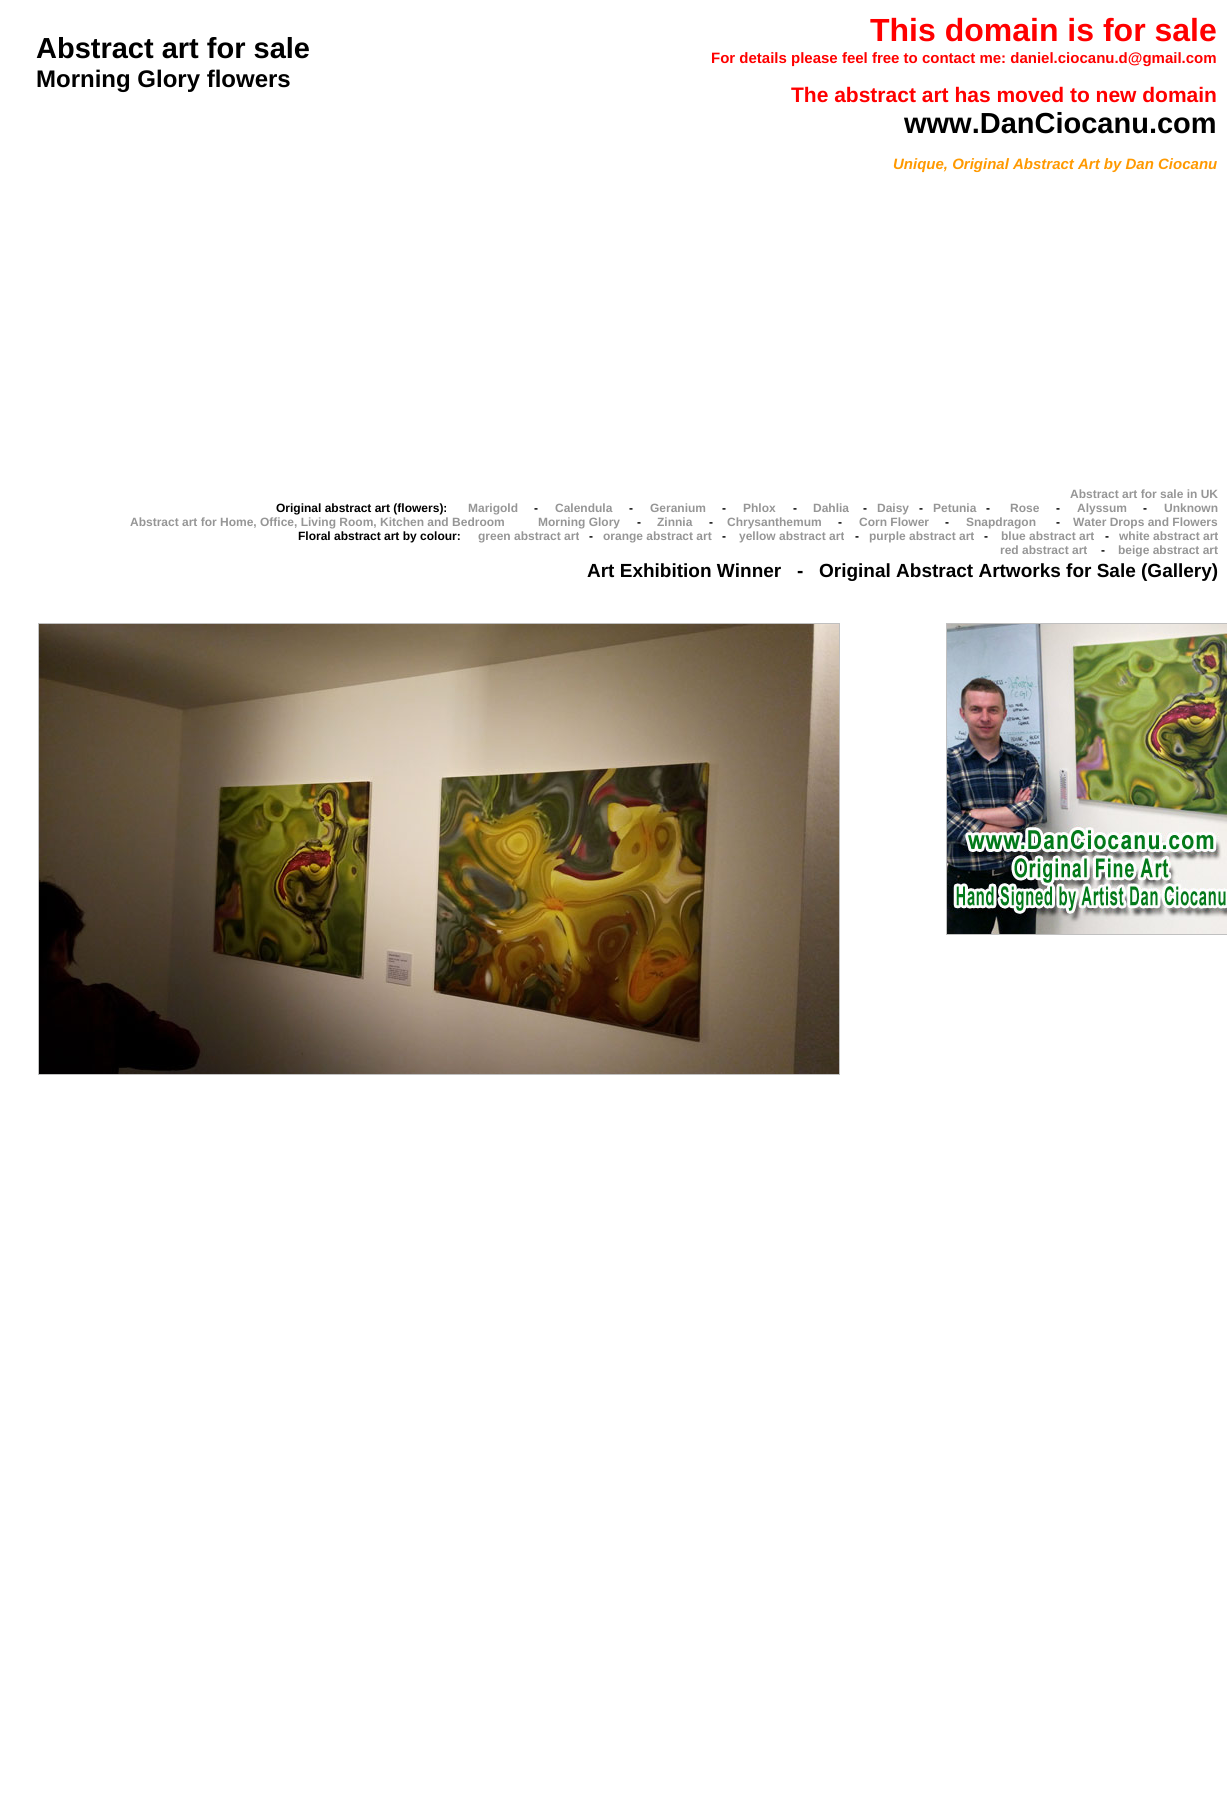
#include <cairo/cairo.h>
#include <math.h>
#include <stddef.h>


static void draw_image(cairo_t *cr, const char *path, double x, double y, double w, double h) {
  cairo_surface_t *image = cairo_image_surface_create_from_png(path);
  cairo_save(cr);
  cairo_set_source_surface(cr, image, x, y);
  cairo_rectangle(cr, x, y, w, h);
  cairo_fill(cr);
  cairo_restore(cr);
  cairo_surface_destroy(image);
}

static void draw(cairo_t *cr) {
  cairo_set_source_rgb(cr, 1, 1, 1);
  cairo_paint(cr);
  cairo_rectangle(cr, 38.5, 623.5, 801, 451);
  cairo_set_source_rgb(cr, 192 / 255.0, 192 / 255.0, 192 / 255.0);
  cairo_set_line_width(cr, 1);
  cairo_stroke(cr);
  draw_image(cr, "images/1.png", 39, 624, 800, 450);
  cairo_rectangle(cr, 946.5, 623.5, 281, 311);
  cairo_stroke(cr);
  draw_image(cr, "images/2.png", 947, 624, 280, 310);
  cairo_select_font_face(cr, "Liberation Sans", CAIRO_FONT_SLANT_NORMAL, CAIRO_FONT_WEIGHT_BOLD);
  cairo_set_font_size(cr, 29);
  cairo_set_source_rgb(cr, 0, 0, 0);
  cairo_move_to(cr, 36, 58);
  cairo_show_text(cr, "Abstract art for sale");
  cairo_set_font_size(cr, 24);
  cairo_move_to(cr, 36, 87);
  cairo_show_text(cr, "Morning Glory flowers");
  cairo_set_font_size(cr, 32);
  cairo_set_source_rgb(cr, 1, 0, 0);
  cairo_move_to(cr, 870, 41);
  cairo_show_text(cr, "This domain is for sale");
  cairo_set_font_size(cr, 15);
  cairo_move_to(cr, 711, 63);
  cairo_show_text(cr, "For details please feel free to contact me: daniel.ciocanu.d@gmail.com");
  cairo_set_font_size(cr, 21);
  cairo_move_to(cr, 791, 102);
  cairo_show_text(cr, "The abstract art has moved to new domain");
  cairo_set_font_size(cr, 29);
  cairo_set_source_rgb(cr, 0, 0, 0);
  cairo_move_to(cr, 904, 133);
  cairo_show_text(cr, "www.DanCiocanu.com");
  cairo_select_font_face(cr, "Liberation Sans", CAIRO_FONT_SLANT_ITALIC, CAIRO_FONT_WEIGHT_BOLD);
  cairo_set_font_size(cr, 15);
  cairo_set_source_rgb(cr, 1, 153 / 255.0, 0);
  cairo_move_to(cr, 893, 169);
  cairo_show_text(cr, "Unique, Original Abstract Art by Dan Ciocanu");
  cairo_select_font_face(cr, "Liberation Sans", CAIRO_FONT_SLANT_NORMAL, CAIRO_FONT_WEIGHT_BOLD);
  cairo_set_font_size(cr, 12);
  cairo_set_source_rgb(cr, 150 / 255.0, 150 / 255.0, 150 / 255.0);
  cairo_move_to(cr, 1070, 498);
  cairo_show_text(cr, "Abstract art for sale in UK");
  cairo_set_source_rgb(cr, 0, 0, 0);
  cairo_move_to(cr, 276, 512);
  cairo_show_text(cr, "Original abstract art (flowers):");
  cairo_set_source_rgb(cr, 150 / 255.0, 150 / 255.0, 150 / 255.0);
  cairo_move_to(cr, 468, 512);
  cairo_show_text(cr, "Marigold");
  cairo_set_source_rgb(cr, 0, 0, 0);
  cairo_move_to(cr, 534, 512);
  cairo_show_text(cr, "-");
  cairo_set_source_rgb(cr, 150 / 255.0, 150 / 255.0, 150 / 255.0);
  cairo_move_to(cr, 555, 512);
  cairo_show_text(cr, "Calendula");
  cairo_set_source_rgb(cr, 0, 0, 0);
  cairo_move_to(cr, 629, 512);
  cairo_show_text(cr, "-");
  cairo_set_source_rgb(cr, 150 / 255.0, 150 / 255.0, 150 / 255.0);
  cairo_move_to(cr, 650, 512);
  cairo_show_text(cr, "Geranium");
  cairo_set_source_rgb(cr, 0, 0, 0);
  cairo_move_to(cr, 722, 512);
  cairo_show_text(cr, "-");
  cairo_set_source_rgb(cr, 150 / 255.0, 150 / 255.0, 150 / 255.0);
  cairo_move_to(cr, 743, 512);
  cairo_show_text(cr, "Phlox");
  cairo_set_source_rgb(cr, 0, 0, 0);
  cairo_move_to(cr, 793, 512);
  cairo_show_text(cr, "-");
  cairo_set_source_rgb(cr, 150 / 255.0, 150 / 255.0, 150 / 255.0);
  cairo_move_to(cr, 813, 512);
  cairo_show_text(cr, "Dahlia");
  cairo_set_source_rgb(cr, 0, 0, 0);
  cairo_move_to(cr, 863, 512);
  cairo_show_text(cr, "-");
  cairo_set_source_rgb(cr, 150 / 255.0, 150 / 255.0, 150 / 255.0);
  cairo_move_to(cr, 877, 512);
  cairo_show_text(cr, "Daisy");
  cairo_set_source_rgb(cr, 0, 0, 0);
  cairo_move_to(cr, 919, 512);
  cairo_show_text(cr, "-");
  cairo_set_source_rgb(cr, 150 / 255.0, 150 / 255.0, 150 / 255.0);
  cairo_move_to(cr, 933, 512);
  cairo_show_text(cr, "Petunia");
  cairo_set_source_rgb(cr, 0, 0, 0);
  cairo_move_to(cr, 986, 512);
  cairo_show_text(cr, "-");
  cairo_set_source_rgb(cr, 150 / 255.0, 150 / 255.0, 150 / 255.0);
  cairo_move_to(cr, 1010, 512);
  cairo_show_text(cr, "Rose");
  cairo_set_source_rgb(cr, 0, 0, 0);
  cairo_move_to(cr, 1056, 512);
  cairo_show_text(cr, "-");
  cairo_set_source_rgb(cr, 150 / 255.0, 150 / 255.0, 150 / 255.0);
  cairo_move_to(cr, 1077, 512);
  cairo_show_text(cr, "Alyssum");
  cairo_set_source_rgb(cr, 0, 0, 0);
  cairo_move_to(cr, 1143, 512);
  cairo_show_text(cr, "-");
  cairo_set_source_rgb(cr, 150 / 255.0, 150 / 255.0, 150 / 255.0);
  cairo_move_to(cr, 1164, 512);
  cairo_show_text(cr, "Unknown");
  cairo_move_to(cr, 130, 526);
  cairo_show_text(cr, "Abstract art for Home, Office, Living Room, Kitchen and Bedroom");
  cairo_move_to(cr, 538, 526);
  cairo_show_text(cr, "Morning Glory");
  cairo_set_source_rgb(cr, 0, 0, 0);
  cairo_move_to(cr, 637, 526);
  cairo_show_text(cr, "-");
  cairo_set_source_rgb(cr, 150 / 255.0, 150 / 255.0, 150 / 255.0);
  cairo_move_to(cr, 657, 526);
  cairo_show_text(cr, "Zinnia");
  cairo_set_source_rgb(cr, 0, 0, 0);
  cairo_move_to(cr, 709, 526);
  cairo_show_text(cr, "-");
  cairo_set_source_rgb(cr, 150 / 255.0, 150 / 255.0, 150 / 255.0);
  cairo_move_to(cr, 727, 526);
  cairo_show_text(cr, "Chrysanthemum");
  cairo_set_source_rgb(cr, 0, 0, 0);
  cairo_move_to(cr, 838, 526);
  cairo_show_text(cr, "-");
  cairo_set_source_rgb(cr, 150 / 255.0, 150 / 255.0, 150 / 255.0);
  cairo_move_to(cr, 859, 526);
  cairo_show_text(cr, "Corn Flower");
  cairo_set_source_rgb(cr, 0, 0, 0);
  cairo_move_to(cr, 945, 526);
  cairo_show_text(cr, "-");
  cairo_set_source_rgb(cr, 150 / 255.0, 150 / 255.0, 150 / 255.0);
  cairo_move_to(cr, 966, 526);
  cairo_show_text(cr, "Snapdragon");
  cairo_set_source_rgb(cr, 0, 0, 0);
  cairo_move_to(cr, 1056, 526);
  cairo_show_text(cr, "-");
  cairo_set_source_rgb(cr, 150 / 255.0, 150 / 255.0, 150 / 255.0);
  cairo_move_to(cr, 1073, 526);
  cairo_show_text(cr, "Water Drops and Flowers");
  cairo_set_source_rgb(cr, 0, 0, 0);
  cairo_move_to(cr, 298, 540);
  cairo_show_text(cr, "Floral abstract art by colour:");
  cairo_set_source_rgb(cr, 150 / 255.0, 150 / 255.0, 150 / 255.0);
  cairo_move_to(cr, 478, 540);
  cairo_show_text(cr, "green abstract art");
  cairo_set_source_rgb(cr, 0, 0, 0);
  cairo_move_to(cr, 589, 540);
  cairo_show_text(cr, "-");
  cairo_set_source_rgb(cr, 150 / 255.0, 150 / 255.0, 150 / 255.0);
  cairo_move_to(cr, 603, 540);
  cairo_show_text(cr, "orange abstract art");
  cairo_set_source_rgb(cr, 0, 0, 0);
  cairo_move_to(cr, 722, 540);
  cairo_show_text(cr, "-");
  cairo_set_source_rgb(cr, 150 / 255.0, 150 / 255.0, 150 / 255.0);
  cairo_move_to(cr, 739, 540);
  cairo_show_text(cr, "yellow abstract art");
  cairo_set_source_rgb(cr, 0, 0, 0);
  cairo_move_to(cr, 855, 540);
  cairo_show_text(cr, "-");
  cairo_set_source_rgb(cr, 150 / 255.0, 150 / 255.0, 150 / 255.0);
  cairo_move_to(cr, 869, 540);
  cairo_show_text(cr, "purple abstract art");
  cairo_set_source_rgb(cr, 0, 0, 0);
  cairo_move_to(cr, 984, 540);
  cairo_show_text(cr, "-");
  cairo_set_source_rgb(cr, 150 / 255.0, 150 / 255.0, 150 / 255.0);
  cairo_move_to(cr, 1001, 540);
  cairo_show_text(cr, "blue abstract art");
  cairo_set_source_rgb(cr, 0, 0, 0);
  cairo_move_to(cr, 1105, 540);
  cairo_show_text(cr, "-");
  cairo_set_source_rgb(cr, 150 / 255.0, 150 / 255.0, 150 / 255.0);
  cairo_move_to(cr, 1119, 540);
  cairo_show_text(cr, "white abstract art");
  cairo_move_to(cr, 1000, 554);
  cairo_show_text(cr, "red abstract art");
  cairo_set_source_rgb(cr, 0, 0, 0);
  cairo_move_to(cr, 1101, 554);
  cairo_show_text(cr, "-");
  cairo_set_source_rgb(cr, 150 / 255.0, 150 / 255.0, 150 / 255.0);
  cairo_move_to(cr, 1118, 554);
  cairo_show_text(cr, "beige abstract art");
  cairo_set_font_size(cr, 19);
  cairo_set_source_rgb(cr, 0, 0, 0);
  cairo_move_to(cr, 587, 577);
  cairo_show_text(cr, "Art Exhibition Winner");
  cairo_move_to(cr, 797, 577);
  cairo_show_text(cr, "-");
  cairo_move_to(cr, 819, 577);
  cairo_show_text(cr, "Original Abstract Artworks for Sale (Gallery)");
}

int main(void) {
  cairo_surface_t *surface = cairo_image_surface_create(CAIRO_FORMAT_RGB24, 1227, 1810);
  cairo_t *cr = cairo_create(surface);
  cairo_font_options_t *options = cairo_font_options_create();
  cairo_font_options_set_hint_metrics(options, CAIRO_HINT_METRICS_OFF);
  cairo_font_options_set_hint_style(options, CAIRO_HINT_STYLE_NONE);
  cairo_set_font_options(cr, options);
  cairo_set_miter_limit(cr, 4);
  draw(cr);
  cairo_surface_write_to_png(surface, "out.png");
  cairo_font_options_destroy(options);
  cairo_destroy(cr);
  cairo_surface_destroy(surface);
  return 0;
}
